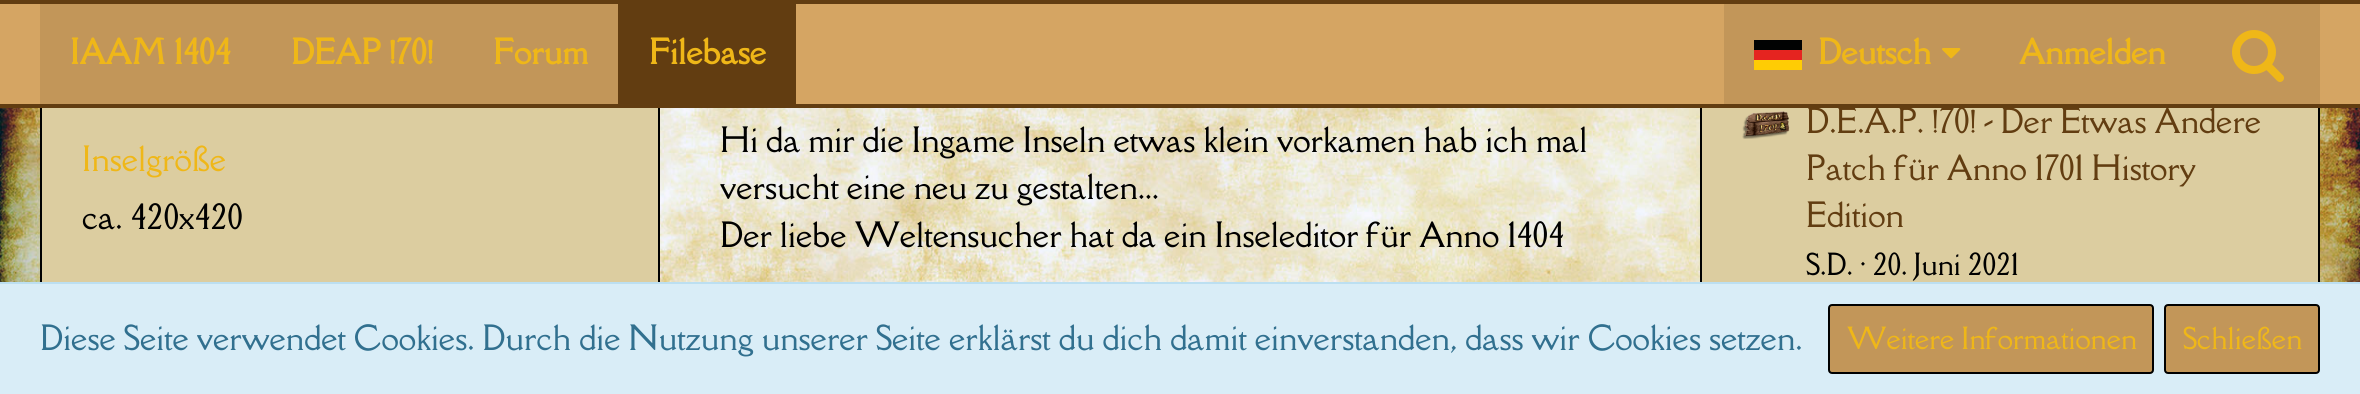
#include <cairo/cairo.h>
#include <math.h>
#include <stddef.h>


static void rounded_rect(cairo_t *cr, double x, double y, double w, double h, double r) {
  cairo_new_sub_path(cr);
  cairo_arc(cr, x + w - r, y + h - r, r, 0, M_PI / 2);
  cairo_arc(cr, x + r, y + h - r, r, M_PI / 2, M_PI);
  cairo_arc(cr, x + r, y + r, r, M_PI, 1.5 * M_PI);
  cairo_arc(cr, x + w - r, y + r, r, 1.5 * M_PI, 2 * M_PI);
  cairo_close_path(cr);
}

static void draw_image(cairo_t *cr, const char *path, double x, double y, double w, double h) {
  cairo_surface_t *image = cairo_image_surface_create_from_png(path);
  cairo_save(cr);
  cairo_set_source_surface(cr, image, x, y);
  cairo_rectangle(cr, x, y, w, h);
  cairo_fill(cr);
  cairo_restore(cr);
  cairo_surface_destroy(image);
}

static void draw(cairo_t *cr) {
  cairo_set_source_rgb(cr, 1, 1, 1);
  cairo_paint(cr);
  draw_image(cr, "images/3.png", 0, 108, 2360, 174);
  cairo_set_source_rgb(cr, 220 / 255.0, 205 / 255.0, 160 / 255.0);
  cairo_rectangle(cr, 42, 108, 616, 174);
  cairo_fill(cr);
  cairo_rectangle(cr, 41, -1, 618, 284);
  cairo_set_source_rgb(cr, 0, 0, 0);
  cairo_stroke(cr);
  cairo_set_source_rgb(cr, 220 / 255.0, 205 / 255.0, 160 / 255.0);
  cairo_rectangle(cr, 1702, 108, 616, 174);
  cairo_fill(cr);
  cairo_rectangle(cr, 1701, -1, 618, 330);
  cairo_set_source_rgb(cr, 0, 0, 0);
  cairo_stroke(cr);
  cairo_set_source_rgb(cr, 213 / 255.0, 165 / 255.0, 99 / 255.0);
  cairo_rectangle(cr, 0, 4, 2360, 100);
  cairo_fill(cr);
  cairo_set_source_rgb(cr, 98 / 255.0, 61 / 255.0, 17 / 255.0);
  cairo_rectangle(cr, 0, 0, 2360, 4);
  cairo_fill(cr);
  cairo_rectangle(cr, 0, 104, 2360, 4);
  cairo_fill(cr);
  cairo_set_source_rgb(cr, 194 / 255.0, 150 / 255.0, 89 / 255.0);
  cairo_rectangle(cr, 40, 4, 578, 100);
  cairo_fill(cr);
  cairo_set_source_rgb(cr, 98 / 255.0, 61 / 255.0, 17 / 255.0);
  cairo_rectangle(cr, 618, 4, 178, 100);
  cairo_fill(cr);
  cairo_set_source_rgb(cr, 194 / 255.0, 150 / 255.0, 89 / 255.0);
  cairo_rectangle(cr, 1724, 4, 596, 100);
  cairo_fill(cr);
  cairo_set_source_rgb(cr, 1 / 255.0, 2 / 255.0, 2 / 255.0);
  cairo_rectangle(cr, 1754, 40, 48, 10);
  cairo_fill(cr);
  cairo_set_source_rgb(cr, 1, 204 / 255.0, 4 / 255.0);
  cairo_rectangle(cr, 1754, 60, 48, 10);
  cairo_fill(cr);
  cairo_set_source_rgb(cr, 229 / 255.0, 36 / 255.0, 32 / 255.0);
  cairo_rectangle(cr, 1754, 50, 48, 10);
  cairo_fill(cr);
  draw_image(cr, "images/1.png", 1942, 48, 19, 11);
  draw_image(cr, "images/2.png", 2232, 30, 52, 52);
  draw_image(cr, "images/4.png", 1742, 111, 48, 28);
  cairo_set_source_rgb(cr, 217 / 255.0, 237 / 255.0, 247 / 255.0);
  cairo_rectangle(cr, 0, 284, 2360, 110);
  cairo_fill(cr);
  cairo_set_source_rgb(cr, 188 / 255.0, 223 / 255.0, 241 / 255.0);
  cairo_rectangle(cr, 0, 282, 2360, 2);
  cairo_fill(cr);
  cairo_set_source_rgb(cr, 194 / 255.0, 150 / 255.0, 89 / 255.0);
  rounded_rect(cr, 1829, 305, 324, 68, 3);
  cairo_fill_preserve(cr);
  cairo_set_source_rgb(cr, 0, 0, 0);
  cairo_stroke(cr);
  cairo_set_source_rgb(cr, 194 / 255.0, 150 / 255.0, 89 / 255.0);
  rounded_rect(cr, 2165, 305, 154, 68, 3);
  cairo_fill_preserve(cr);
  cairo_set_source_rgb(cr, 0, 0, 0);
  cairo_stroke(cr);
  cairo_select_font_face(cr, "Della Respira", CAIRO_FONT_SLANT_NORMAL, CAIRO_FONT_WEIGHT_BOLD);
  cairo_set_font_size(cr, 32);
  cairo_set_source_rgb(cr, 239 / 255.0, 183 / 255.0, 24 / 255.0);
  cairo_move_to(cr, 70, 64);
  cairo_show_text(cr, "IAAM 1404");
  cairo_move_to(cr, 291, 64);
  cairo_show_text(cr, "DEAP !70!");
  cairo_move_to(cr, 493, 64);
  cairo_show_text(cr, "Forum");
  cairo_move_to(cr, 649, 64);
  cairo_show_text(cr, "Filebase");
  cairo_move_to(cr, 1818, 64);
  cairo_show_text(cr, "Deutsch");
  cairo_move_to(cr, 2019, 64);
  cairo_show_text(cr, "Anmelden");
  cairo_select_font_face(cr, "Della Respira", CAIRO_FONT_SLANT_NORMAL, CAIRO_FONT_WEIGHT_NORMAL);
  cairo_move_to(cr, 82, 171);
  cairo_show_text(cr, "Inselgröße");
  cairo_set_source_rgb(cr, 0, 0, 0);
  cairo_move_to(cr, 82, 229);
  cairo_show_text(cr, "ca. 420x420");
  cairo_move_to(cr, 720, 152);
  cairo_show_text(cr, "Hi da mir die Ingame Inseln etwas klein vorkamen hab ich mal");
  cairo_move_to(cr, 720, 199);
  cairo_show_text(cr, "versucht eine neu zu gestalten...");
  cairo_move_to(cr, 720, 247);
  cairo_show_text(cr, "Der liebe Weltensucher hat da ein Inseleditor für Anno 1404");
  cairo_set_source_rgb(cr, 98 / 255.0, 61 / 255.0, 17 / 255.0);
  cairo_move_to(cr, 1806, 133);
  cairo_show_text(cr, "D.E.A.P. !70! - Der Etwas Andere");
  cairo_move_to(cr, 1806, 180);
  cairo_show_text(cr, "Patch für Anno 1701 History");
  cairo_move_to(cr, 1806, 227);
  cairo_show_text(cr, "Edition");
  cairo_set_font_size(cr, 28);
  cairo_set_source_rgb(cr, 0, 0, 0);
  cairo_move_to(cr, 1806, 275);
  cairo_show_text(cr, "S.D. · 20. Juni 2021");
  cairo_set_font_size(cr, 32);
  cairo_set_source_rgb(cr, 49 / 255.0, 112 / 255.0, 143 / 255.0);
  cairo_move_to(cr, 40, 350);
  cairo_show_text(cr, "Diese Seite verwendet Cookies. Durch die Nutzung unserer Seite erklärst du dich damit einverstanden, dass wir Cookies setzen.");
  cairo_set_font_size(cr, 28);
  cairo_set_source_rgb(cr, 239 / 255.0, 183 / 255.0, 24 / 255.0);
  cairo_move_to(cr, 1847, 349);
  cairo_show_text(cr, "Weitere Informationen");
  cairo_move_to(cr, 2183, 349);
  cairo_show_text(cr, "Schließen");
}

int main(void) {
  cairo_surface_t *surface = cairo_image_surface_create(CAIRO_FORMAT_RGB24, 2360, 394);
  cairo_t *cr = cairo_create(surface);
  cairo_font_options_t *options = cairo_font_options_create();
  cairo_font_options_set_hint_metrics(options, CAIRO_HINT_METRICS_OFF);
  cairo_font_options_set_hint_style(options, CAIRO_HINT_STYLE_NONE);
  cairo_set_font_options(cr, options);
  cairo_set_miter_limit(cr, 4);
  draw(cr);
  cairo_surface_write_to_png(surface, "out.png");
  cairo_font_options_destroy(options);
  cairo_destroy(cr);
  cairo_surface_destroy(surface);
  return 0;
}
